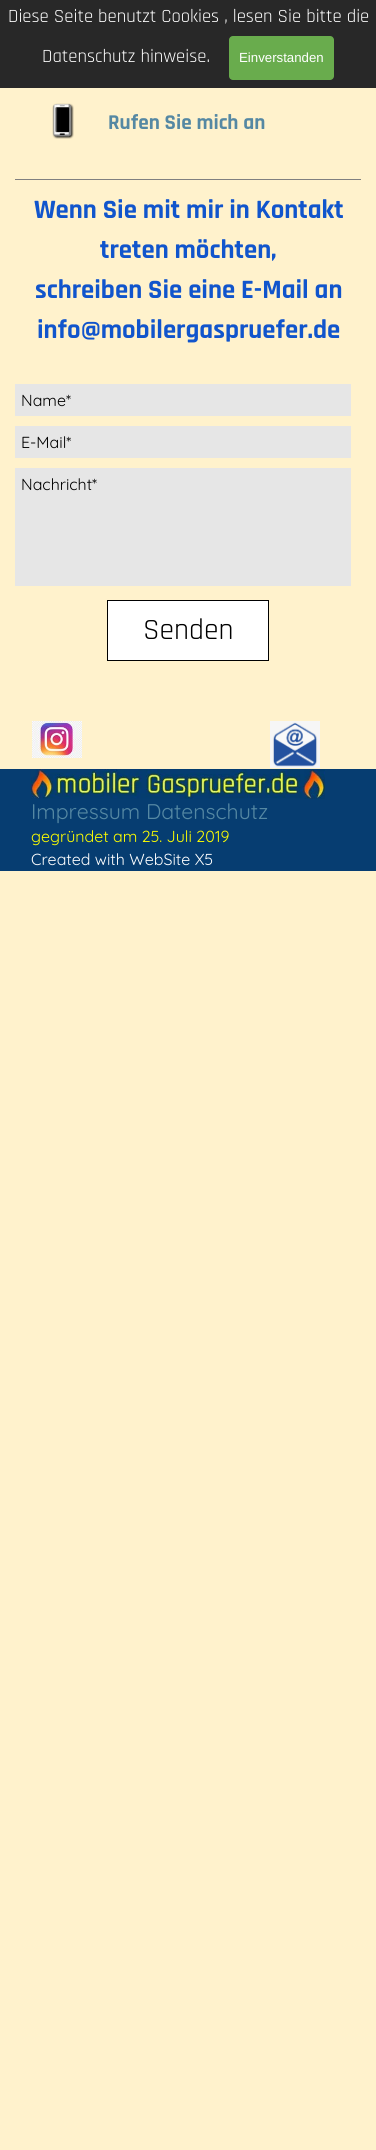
#include <cairo/cairo.h>
#include <math.h>
#include <stddef.h>


static void rounded_rect(cairo_t *cr, double x, double y, double w, double h, double r) {
  cairo_new_sub_path(cr);
  cairo_arc(cr, x + w - r, y + h - r, r, 0, M_PI / 2);
  cairo_arc(cr, x + r, y + h - r, r, M_PI / 2, M_PI);
  cairo_arc(cr, x + r, y + r, r, M_PI, 1.5 * M_PI);
  cairo_arc(cr, x + w - r, y + r, r, 1.5 * M_PI, 2 * M_PI);
  cairo_close_path(cr);
}

static void draw_image(cairo_t *cr, const char *path, double x, double y, double w, double h) {
  cairo_surface_t *image = cairo_image_surface_create_from_png(path);
  cairo_save(cr);
  cairo_set_source_surface(cr, image, x, y);
  cairo_rectangle(cr, x, y, w, h);
  cairo_fill(cr);
  cairo_restore(cr);
  cairo_surface_destroy(image);
}

static void draw(cairo_t *cr) {
  cairo_set_source_rgb(cr, 1, 242 / 255.0, 204 / 255.0);
  cairo_paint(cr);
  cairo_set_source_rgb(cr, 40 / 255.0, 40 / 255.0, 40 / 255.0);
  cairo_rectangle(cr, 0, 0, 376, 88);
  cairo_fill(cr);
  cairo_set_source_rgb(cr, 105 / 255.0, 172 / 255.0, 77 / 255.0);
  rounded_rect(cr, 229, 36, 105, 44, 4);
  cairo_fill(cr);
  draw_image(cr, "images/1.png", 52, 103, 22, 36);
  cairo_set_source_rgb(cr, 128 / 255.0, 128 / 255.0, 128 / 255.0);
  cairo_rectangle(cr, 15, 179, 346, 1);
  cairo_fill(cr);
  cairo_set_source_rgb(cr, 230 / 255.0, 230 / 255.0, 230 / 255.0);
  cairo_rectangle(cr, 15, 384, 336, 32);
  cairo_fill(cr);
  cairo_rectangle(cr, 15, 426, 336, 32);
  cairo_fill(cr);
  cairo_rectangle(cr, 15, 468, 336, 118);
  cairo_fill(cr);
  cairo_set_source_rgb(cr, 1, 1, 1);
  cairo_rectangle(cr, 107.5, 600.5, 161, 60);
  cairo_fill_preserve(cr);
  cairo_set_source_rgb(cr, 0, 0, 0);
  cairo_set_line_width(cr, 1);
  cairo_stroke(cr);
  cairo_set_source_rgb(cr, 6 / 255.0, 61 / 255.0, 113 / 255.0);
  cairo_rectangle(cr, 0, 769, 376, 102);
  cairo_fill(cr);
  draw_image(cr, "images/2.png", 32, 721, 50, 37);
  draw_image(cr, "images/3.png", 270, 721, 50, 47);
  draw_image(cr, "images/4.png", 31, 769, 294, 30);
  cairo_select_font_face(cr, "Rajdhani", CAIRO_FONT_SLANT_NORMAL, CAIRO_FONT_WEIGHT_NORMAL);
  cairo_set_font_size(cr, 18.7);
  cairo_set_source_rgb(cr, 1, 1, 1);
  cairo_move_to(cr, 8, 22);
  cairo_show_text(cr, "Diese Seite benutzt Cookies , lesen Sie bitte die");
  cairo_move_to(cr, 42, 62);
  cairo_show_text(cr, "Datenschutz hinweise.");
  cairo_select_font_face(cr, "Liberation Sans", CAIRO_FONT_SLANT_NORMAL, CAIRO_FONT_WEIGHT_NORMAL);
  cairo_set_font_size(cr, 13.25);
  cairo_move_to(cr, 239, 62);
  cairo_show_text(cr, "Einverstanden");
  cairo_select_font_face(cr, "Rajdhani", CAIRO_FONT_SLANT_NORMAL, CAIRO_FONT_WEIGHT_BOLD);
  cairo_set_font_size(cr, 21.25);
  cairo_set_source_rgb(cr, 85 / 255.0, 136 / 255.0, 163 / 255.0);
  cairo_move_to(cr, 108, 129);
  cairo_show_text(cr, "Rufen Sie mich an");
  cairo_set_font_size(cr, 26.75);
  cairo_set_source_rgb(cr, 17 / 255.0, 85 / 255.0, 204 / 255.0);
  cairo_move_to(cr, 34, 218);
  cairo_show_text(cr, "Wenn Sie mit mir in Kontakt");
  cairo_move_to(cr, 100, 258);
  cairo_show_text(cr, "treten möchten,");
  cairo_move_to(cr, 35, 298);
  cairo_show_text(cr, "schreiben Sie eine E-Mail an");
  cairo_move_to(cr, 37, 338);
  cairo_show_text(cr, "info@mobilergaspruefer.de");
  cairo_select_font_face(cr, "Quicksand", CAIRO_FONT_SLANT_NORMAL, CAIRO_FONT_WEIGHT_NORMAL);
  cairo_set_font_size(cr, 16);
  cairo_set_source_rgb(cr, 0, 0, 0);
  cairo_move_to(cr, 21, 406);
  cairo_show_text(cr, "Name*");
  cairo_move_to(cr, 21, 448);
  cairo_show_text(cr, "E-Mail*");
  cairo_move_to(cr, 21, 490);
  cairo_show_text(cr, "Nachricht*");
  cairo_select_font_face(cr, "Rajdhani", CAIRO_FONT_SLANT_NORMAL, CAIRO_FONT_WEIGHT_NORMAL);
  cairo_set_font_size(cr, 29.5);
  cairo_move_to(cr, 143, 639);
  cairo_show_text(cr, "Senden");
  cairo_select_font_face(cr, "Quicksand", CAIRO_FONT_SLANT_NORMAL, CAIRO_FONT_WEIGHT_NORMAL);
  cairo_set_font_size(cr, 21.25);
  cairo_set_source_rgb(cr, 85 / 255.0, 136 / 255.0, 163 / 255.0);
  cairo_move_to(cr, 31, 819);
  cairo_show_text(cr, "Impressum Datenschutz");
  cairo_set_font_size(cr, 16);
  cairo_set_source_rgb(cr, 1, 1, 0);
  cairo_move_to(cr, 31, 842);
  cairo_show_text(cr, "gegründet am 25. Juli 2019");
  cairo_set_source_rgb(cr, 1, 1, 1);
  cairo_move_to(cr, 31, 865);
  cairo_show_text(cr, "Created with WebSite X5");
}

int main(void) {
  cairo_surface_t *surface = cairo_image_surface_create(CAIRO_FORMAT_RGB24, 376, 2150);
  cairo_t *cr = cairo_create(surface);
  cairo_font_options_t *options = cairo_font_options_create();
  cairo_font_options_set_hint_metrics(options, CAIRO_HINT_METRICS_OFF);
  cairo_font_options_set_hint_style(options, CAIRO_HINT_STYLE_NONE);
  cairo_set_font_options(cr, options);
  cairo_set_miter_limit(cr, 4);
  draw(cr);
  cairo_surface_write_to_png(surface, "out.png");
  cairo_font_options_destroy(options);
  cairo_destroy(cr);
  cairo_surface_destroy(surface);
  return 0;
}
